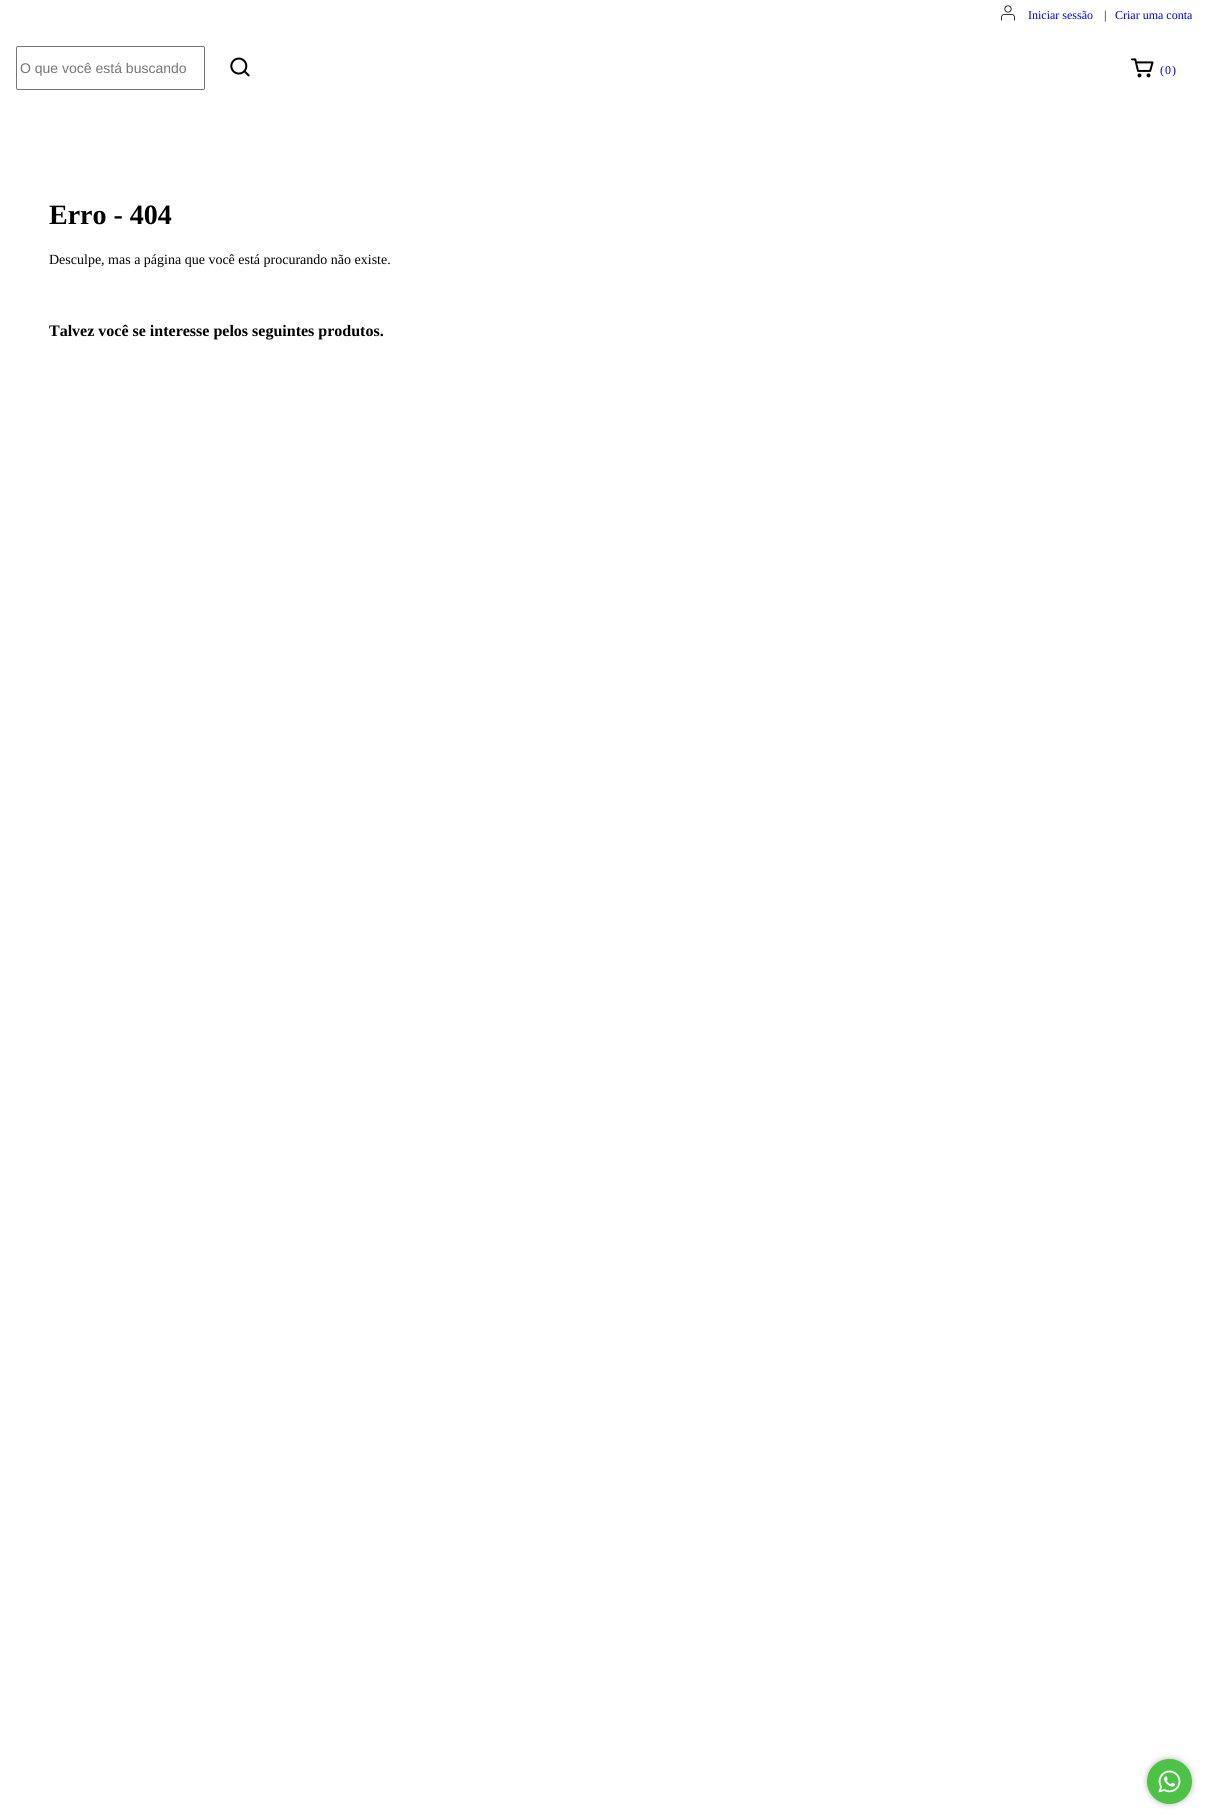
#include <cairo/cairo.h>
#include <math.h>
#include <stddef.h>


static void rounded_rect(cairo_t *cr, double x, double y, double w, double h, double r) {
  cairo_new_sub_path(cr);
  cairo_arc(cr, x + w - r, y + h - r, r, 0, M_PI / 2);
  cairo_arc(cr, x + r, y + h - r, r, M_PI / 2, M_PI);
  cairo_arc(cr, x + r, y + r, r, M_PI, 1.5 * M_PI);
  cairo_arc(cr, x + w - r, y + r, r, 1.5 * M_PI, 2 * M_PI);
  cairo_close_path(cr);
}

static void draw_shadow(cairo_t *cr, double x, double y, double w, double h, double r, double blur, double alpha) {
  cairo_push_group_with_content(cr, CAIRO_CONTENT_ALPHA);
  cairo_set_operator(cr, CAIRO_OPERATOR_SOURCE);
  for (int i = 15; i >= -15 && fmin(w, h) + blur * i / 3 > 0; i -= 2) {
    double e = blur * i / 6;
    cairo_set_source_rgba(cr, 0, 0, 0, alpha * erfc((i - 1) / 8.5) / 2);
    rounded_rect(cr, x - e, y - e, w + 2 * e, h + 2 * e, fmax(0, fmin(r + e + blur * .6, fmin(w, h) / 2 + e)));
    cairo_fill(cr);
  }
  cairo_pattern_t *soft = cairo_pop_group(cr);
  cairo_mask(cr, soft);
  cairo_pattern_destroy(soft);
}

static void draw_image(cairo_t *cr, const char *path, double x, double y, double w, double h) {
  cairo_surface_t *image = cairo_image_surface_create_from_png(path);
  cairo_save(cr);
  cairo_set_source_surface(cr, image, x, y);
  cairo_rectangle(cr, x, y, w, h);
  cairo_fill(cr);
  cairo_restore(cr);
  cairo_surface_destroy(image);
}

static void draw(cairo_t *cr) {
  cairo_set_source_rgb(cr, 1, 1, 1);
  cairo_paint(cr);
  draw_image(cr, "images/1.png", 1001, 5, 14, 16);
  rounded_rect(cr, 16.5, 46.5, 188, 43, 1.5);
  cairo_set_source_rgb(cr, 118 / 255.0, 118 / 255.0, 118 / 255.0);
  cairo_set_line_width(cr, 1);
  cairo_stroke(cr);
  draw_image(cr, "images/2.png", 230, 57, 20, 20);
  draw_image(cr, "images/3.png", 1131, 58, 23, 20);
  cairo_set_source_rgb(cr, 0, 0, 0);
  draw_shadow(cr, 1147, 1759, 45, 45, 22.5, 3, 0.3);
  cairo_set_source_rgb(cr, 77 / 255.0, 194 / 255.0, 71 / 255.0);
  cairo_arc(cr, 1169.5, 1781.5, 22.5, 0, 2 * M_PI);
  cairo_fill(cr);
  draw_image(cr, "images/4.png", 1158, 1770, 23, 23);
  cairo_select_font_face(cr, "Liberation Serif", CAIRO_FONT_SLANT_NORMAL, CAIRO_FONT_WEIGHT_NORMAL);
  cairo_set_font_size(cr, 12);
  cairo_set_source_rgb(cr, 0, 0, 238 / 255.0);
  cairo_move_to(cr, 1028, 19);
  cairo_show_text(cr, "Iniciar sessão");
  cairo_set_source_rgb(cr, 0, 0, 0);
  cairo_move_to(cr, 1104, 19);
  cairo_show_text(cr, "|");
  cairo_set_source_rgb(cr, 0, 0, 238 / 255.0);
  cairo_move_to(cr, 1115, 19);
  cairo_show_text(cr, "Criar uma conta");
  cairo_select_font_face(cr, "Liberation Sans", CAIRO_FONT_SLANT_NORMAL, CAIRO_FONT_WEIGHT_NORMAL);
  cairo_set_font_size(cr, 14);
  cairo_set_source_rgb(cr, 117 / 255.0, 117 / 255.0, 117 / 255.0);
  cairo_move_to(cr, 20, 73);
  cairo_show_text(cr, "O que você está buscando");
  cairo_select_font_face(cr, "Liberation Serif", CAIRO_FONT_SLANT_NORMAL, CAIRO_FONT_WEIGHT_NORMAL);
  cairo_set_font_size(cr, 12);
  cairo_set_source_rgb(cr, 0, 0, 238 / 255.0);
  cairo_move_to(cr, 1160, 74);
  cairo_show_text(cr, "(");
  cairo_move_to(cr, 1165, 74);
  cairo_show_text(cr, "0");
  cairo_move_to(cr, 1172, 74);
  cairo_show_text(cr, ")");
  cairo_select_font_face(cr, "Liberation Serif", CAIRO_FONT_SLANT_NORMAL, CAIRO_FONT_WEIGHT_BOLD);
  cairo_set_font_size(cr, 28);
  cairo_set_source_rgb(cr, 0, 0, 0);
  cairo_move_to(cr, 49, 224);
  cairo_show_text(cr, "Erro - 404");
  cairo_select_font_face(cr, "Liberation Serif", CAIRO_FONT_SLANT_NORMAL, CAIRO_FONT_WEIGHT_NORMAL);
  cairo_set_font_size(cr, 14);
  cairo_move_to(cr, 49, 264);
  cairo_show_text(cr, "Desculpe, mas a página que você está procurando não existe.");
  cairo_select_font_face(cr, "Liberation Serif", CAIRO_FONT_SLANT_NORMAL, CAIRO_FONT_WEIGHT_BOLD);
  cairo_set_font_size(cr, 16);
  cairo_move_to(cr, 49, 336);
  cairo_show_text(cr, "Talvez você se interesse pelos seguintes produtos.");
}

int main(void) {
  cairo_surface_t *surface = cairo_image_surface_create(CAIRO_FORMAT_RGB24, 1207, 1819);
  cairo_t *cr = cairo_create(surface);
  cairo_font_options_t *options = cairo_font_options_create();
  cairo_font_options_set_hint_metrics(options, CAIRO_HINT_METRICS_OFF);
  cairo_font_options_set_hint_style(options, CAIRO_HINT_STYLE_NONE);
  cairo_set_font_options(cr, options);
  cairo_set_miter_limit(cr, 4);
  draw(cr);
  cairo_surface_write_to_png(surface, "out.png");
  cairo_font_options_destroy(options);
  cairo_destroy(cr);
  cairo_surface_destroy(surface);
  return 0;
}
